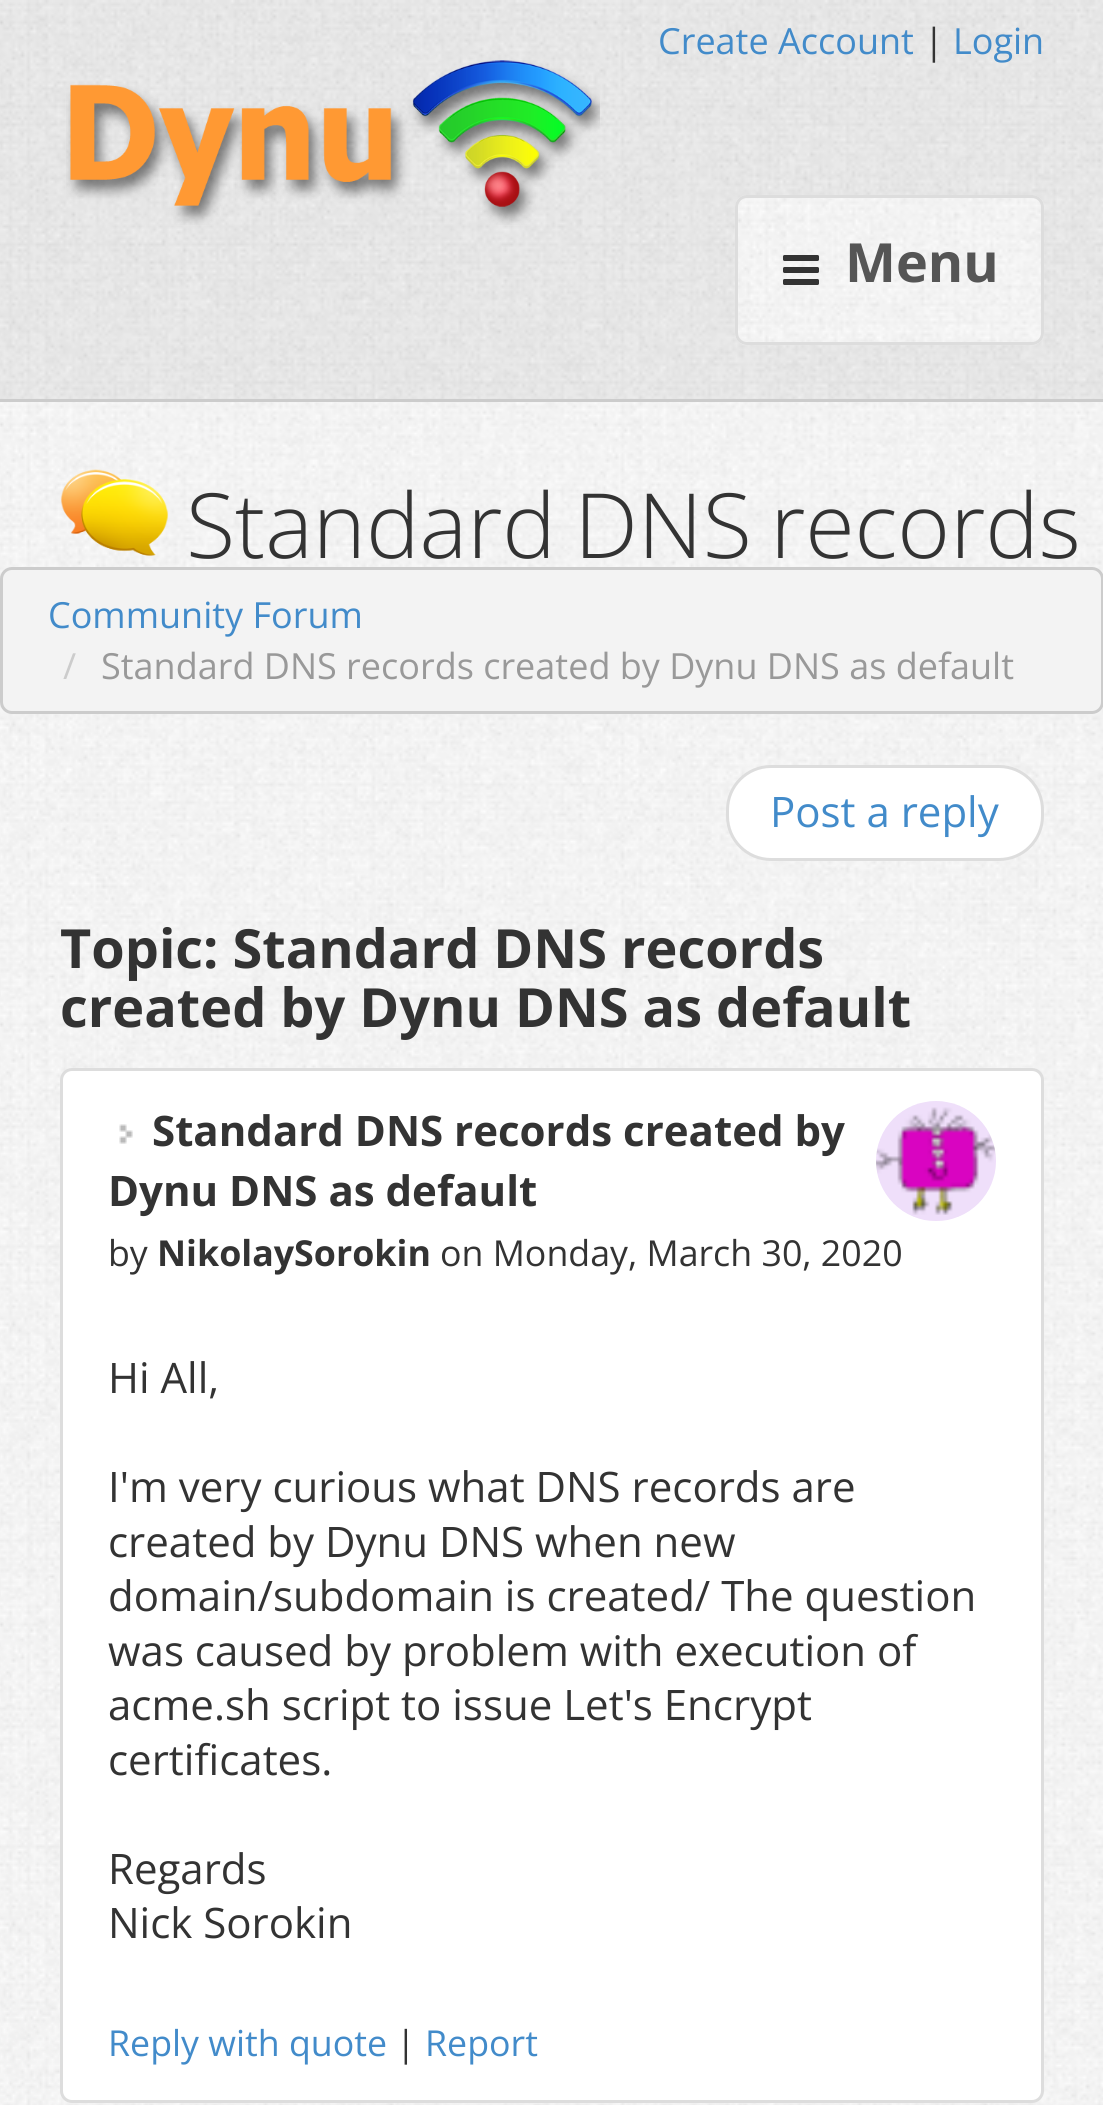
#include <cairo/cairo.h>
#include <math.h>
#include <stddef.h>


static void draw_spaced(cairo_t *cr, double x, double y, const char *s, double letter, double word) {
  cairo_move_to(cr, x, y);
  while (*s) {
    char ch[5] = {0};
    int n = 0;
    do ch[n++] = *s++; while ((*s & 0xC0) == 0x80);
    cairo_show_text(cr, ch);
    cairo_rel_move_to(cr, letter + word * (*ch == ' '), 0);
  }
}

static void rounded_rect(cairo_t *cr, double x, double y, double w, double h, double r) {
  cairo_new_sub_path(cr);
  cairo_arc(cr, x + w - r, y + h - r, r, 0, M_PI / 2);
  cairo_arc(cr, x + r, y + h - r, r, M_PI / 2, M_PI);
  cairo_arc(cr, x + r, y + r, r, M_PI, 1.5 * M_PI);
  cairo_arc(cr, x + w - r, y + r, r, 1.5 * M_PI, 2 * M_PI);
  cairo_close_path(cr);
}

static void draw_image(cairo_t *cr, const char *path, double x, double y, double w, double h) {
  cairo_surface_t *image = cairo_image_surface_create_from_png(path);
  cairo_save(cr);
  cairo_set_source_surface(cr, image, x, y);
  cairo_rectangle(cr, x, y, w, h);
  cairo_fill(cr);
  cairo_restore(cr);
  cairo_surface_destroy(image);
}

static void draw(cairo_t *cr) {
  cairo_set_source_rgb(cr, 1, 1, 1);
  cairo_paint(cr);
  draw_image(cr, "images/1.png", 0, 0, 1103, 399);
  cairo_set_source_rgb(cr, 204 / 255.0, 204 / 255.0, 204 / 255.0);
  cairo_rectangle(cr, 0, 399, 1103, 3);
  cairo_fill(cr);
  draw_image(cr, "images/2.png", 66, 60, 534, 165);
  draw_image(cr, "images/3.png", 735, 195, 309, 150);
  rounded_rect(cr, 736.5, 196.5, 306, 147, 10.5);
  cairo_set_source_rgb(cr, 221 / 255.0, 221 / 255.0, 221 / 255.0);
  cairo_set_line_width(cr, 3);
  cairo_stroke(cr);
  draw_image(cr, "images/4.png", 783, 255, 36, 30);
  draw_image(cr, "images/5.png", 0, 402, 1103, 1703);
  draw_image(cr, "images/6.png", 60, 469, 108, 87);
  cairo_set_source_rgb(cr, 243 / 255.0, 243 / 255.0, 243 / 255.0);
  rounded_rect(cr, 1.5, 568.5, 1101, 144, 10.5);
  cairo_fill_preserve(cr);
  cairo_set_source_rgb(cr, 204 / 255.0, 204 / 255.0, 204 / 255.0);
  cairo_stroke(cr);
  cairo_set_source_rgb(cr, 1, 1, 1);
  rounded_rect(cr, 727.5, 766.5, 315, 93, 43.5);
  cairo_fill_preserve(cr);
  cairo_set_source_rgb(cr, 221 / 255.0, 221 / 255.0, 221 / 255.0);
  cairo_stroke(cr);
  cairo_set_source_rgb(cr, 1, 1, 1);
  rounded_rect(cr, 61.5, 1069.5, 981, 1032, 10.5);
  cairo_fill_preserve(cr);
  cairo_set_source_rgb(cr, 221 / 255.0, 221 / 255.0, 221 / 255.0);
  cairo_stroke(cr);
  draw_image(cr, "images/7.png", 119, 1124, 14, 20);
  draw_image(cr, "images/8.png", 876, 1101, 120, 120);
  cairo_select_font_face(cr, "Open Sans", CAIRO_FONT_SLANT_NORMAL, CAIRO_FONT_WEIGHT_NORMAL);
  cairo_set_font_size(cr, 36);
  cairo_set_source_rgb(cr, 66 / 255.0, 139 / 255.0, 202 / 255.0);
  cairo_move_to(cr, 658, 54);
  cairo_show_text(cr, "Create Account");
  cairo_set_source_rgb(cr, 51 / 255.0, 51 / 255.0, 51 / 255.0);
  cairo_move_to(cr, 924, 54);
  cairo_show_text(cr, "|");
  cairo_set_source_rgb(cr, 66 / 255.0, 139 / 255.0, 202 / 255.0);
  cairo_move_to(cr, 953, 54);
  cairo_show_text(cr, "Login");
  cairo_select_font_face(cr, "Open Sans", CAIRO_FONT_SLANT_NORMAL, CAIRO_FONT_WEIGHT_BOLD);
  cairo_set_font_size(cr, 54);
  cairo_set_source_rgb(cr, 85 / 255.0, 85 / 255.0, 85 / 255.0);
  cairo_move_to(cr, 845, 282);
  cairo_show_text(cr, "Menu");
  cairo_select_font_face(cr, "Open Sans Light", CAIRO_FONT_SLANT_NORMAL, CAIRO_FONT_WEIGHT_NORMAL);
  cairo_set_font_size(cr, 90);
  cairo_set_source_rgb(cr, 51 / 255.0, 51 / 255.0, 51 / 255.0);
  draw_spaced(cr, 186, 558, "Standard DNS records", 0, -5);
  cairo_select_font_face(cr, "Open Sans", CAIRO_FONT_SLANT_NORMAL, CAIRO_FONT_WEIGHT_NORMAL);
  cairo_set_font_size(cr, 36);
  cairo_set_source_rgb(cr, 66 / 255.0, 139 / 255.0, 202 / 255.0);
  cairo_move_to(cr, 48, 628);
  cairo_show_text(cr, "Community Forum");
  cairo_set_source_rgb(cr, 204 / 255.0, 204 / 255.0, 204 / 255.0);
  cairo_move_to(cr, 63, 679);
  cairo_show_text(cr, "/");
  cairo_set_source_rgb(cr, 153 / 255.0, 153 / 255.0, 153 / 255.0);
  cairo_move_to(cr, 101, 679);
  cairo_show_text(cr, "Standard DNS records created by Dynu DNS as default");
  cairo_set_font_size(cr, 42);
  cairo_set_source_rgb(cr, 66 / 255.0, 139 / 255.0, 202 / 255.0);
  cairo_move_to(cr, 770, 827);
  cairo_show_text(cr, "Post a reply");
  cairo_select_font_face(cr, "Open Sans", CAIRO_FONT_SLANT_NORMAL, CAIRO_FONT_WEIGHT_BOLD);
  cairo_set_font_size(cr, 54);
  cairo_set_source_rgb(cr, 51 / 255.0, 51 / 255.0, 51 / 255.0);
  cairo_move_to(cr, 60, 968);
  cairo_show_text(cr, "Topic: Standard DNS records");
  cairo_move_to(cr, 60, 1027);
  cairo_show_text(cr, "created by Dynu DNS as default");
  cairo_set_font_size(cr, 42);
  cairo_move_to(cr, 152, 1146);
  cairo_show_text(cr, "Standard DNS records created by");
  cairo_move_to(cr, 108, 1206);
  cairo_show_text(cr, "Dynu DNS as default");
  cairo_select_font_face(cr, "Open Sans", CAIRO_FONT_SLANT_NORMAL, CAIRO_FONT_WEIGHT_NORMAL);
  cairo_set_font_size(cr, 35.75);
  cairo_move_to(cr, 108, 1266);
  cairo_show_text(cr, "by");
  cairo_select_font_face(cr, "Open Sans", CAIRO_FONT_SLANT_NORMAL, CAIRO_FONT_WEIGHT_BOLD);
  cairo_move_to(cr, 157, 1266);
  cairo_show_text(cr, "NikolaySorokin");
  cairo_select_font_face(cr, "Open Sans", CAIRO_FONT_SLANT_NORMAL, CAIRO_FONT_WEIGHT_NORMAL);
  cairo_move_to(cr, 440, 1266);
  cairo_show_text(cr, "on Monday, March 30, 2020");
  cairo_set_font_size(cr, 42);
  cairo_move_to(cr, 108, 1393);
  cairo_show_text(cr, "Hi All,");
  cairo_move_to(cr, 108, 1502);
  cairo_show_text(cr, "I'm very curious what DNS records are");
  cairo_move_to(cr, 108, 1557);
  cairo_show_text(cr, "created by Dynu DNS when new");
  cairo_move_to(cr, 108, 1611);
  cairo_show_text(cr, "domain/subdomain is created/ The question");
  cairo_move_to(cr, 108, 1666);
  cairo_show_text(cr, "was caused by problem with execution of");
  cairo_move_to(cr, 108, 1720);
  cairo_show_text(cr, "acme.sh script to issue Let's Encrypt");
  cairo_move_to(cr, 108, 1775);
  cairo_show_text(cr, "certificates.");
  cairo_move_to(cr, 108, 1884);
  cairo_show_text(cr, "Regards");
  cairo_move_to(cr, 108, 1938);
  cairo_show_text(cr, "Nick Sorokin");
  cairo_set_font_size(cr, 35.75);
  cairo_set_source_rgb(cr, 66 / 255.0, 139 / 255.0, 202 / 255.0);
  cairo_move_to(cr, 108, 2056);
  cairo_show_text(cr, "Reply with quote");
  cairo_set_source_rgb(cr, 51 / 255.0, 51 / 255.0, 51 / 255.0);
  cairo_move_to(cr, 396, 2056);
  cairo_show_text(cr, "|");
  cairo_set_source_rgb(cr, 66 / 255.0, 139 / 255.0, 202 / 255.0);
  cairo_move_to(cr, 425, 2056);
  cairo_show_text(cr, "Report");
}

int main(void) {
  cairo_surface_t *surface = cairo_image_surface_create(CAIRO_FORMAT_RGB24, 1103, 2105);
  cairo_t *cr = cairo_create(surface);
  cairo_font_options_t *options = cairo_font_options_create();
  cairo_font_options_set_hint_metrics(options, CAIRO_HINT_METRICS_OFF);
  cairo_font_options_set_hint_style(options, CAIRO_HINT_STYLE_NONE);
  cairo_set_font_options(cr, options);
  cairo_set_miter_limit(cr, 4);
  draw(cr);
  cairo_surface_write_to_png(surface, "out.png");
  cairo_font_options_destroy(options);
  cairo_destroy(cr);
  cairo_surface_destroy(surface);
  return 0;
}
